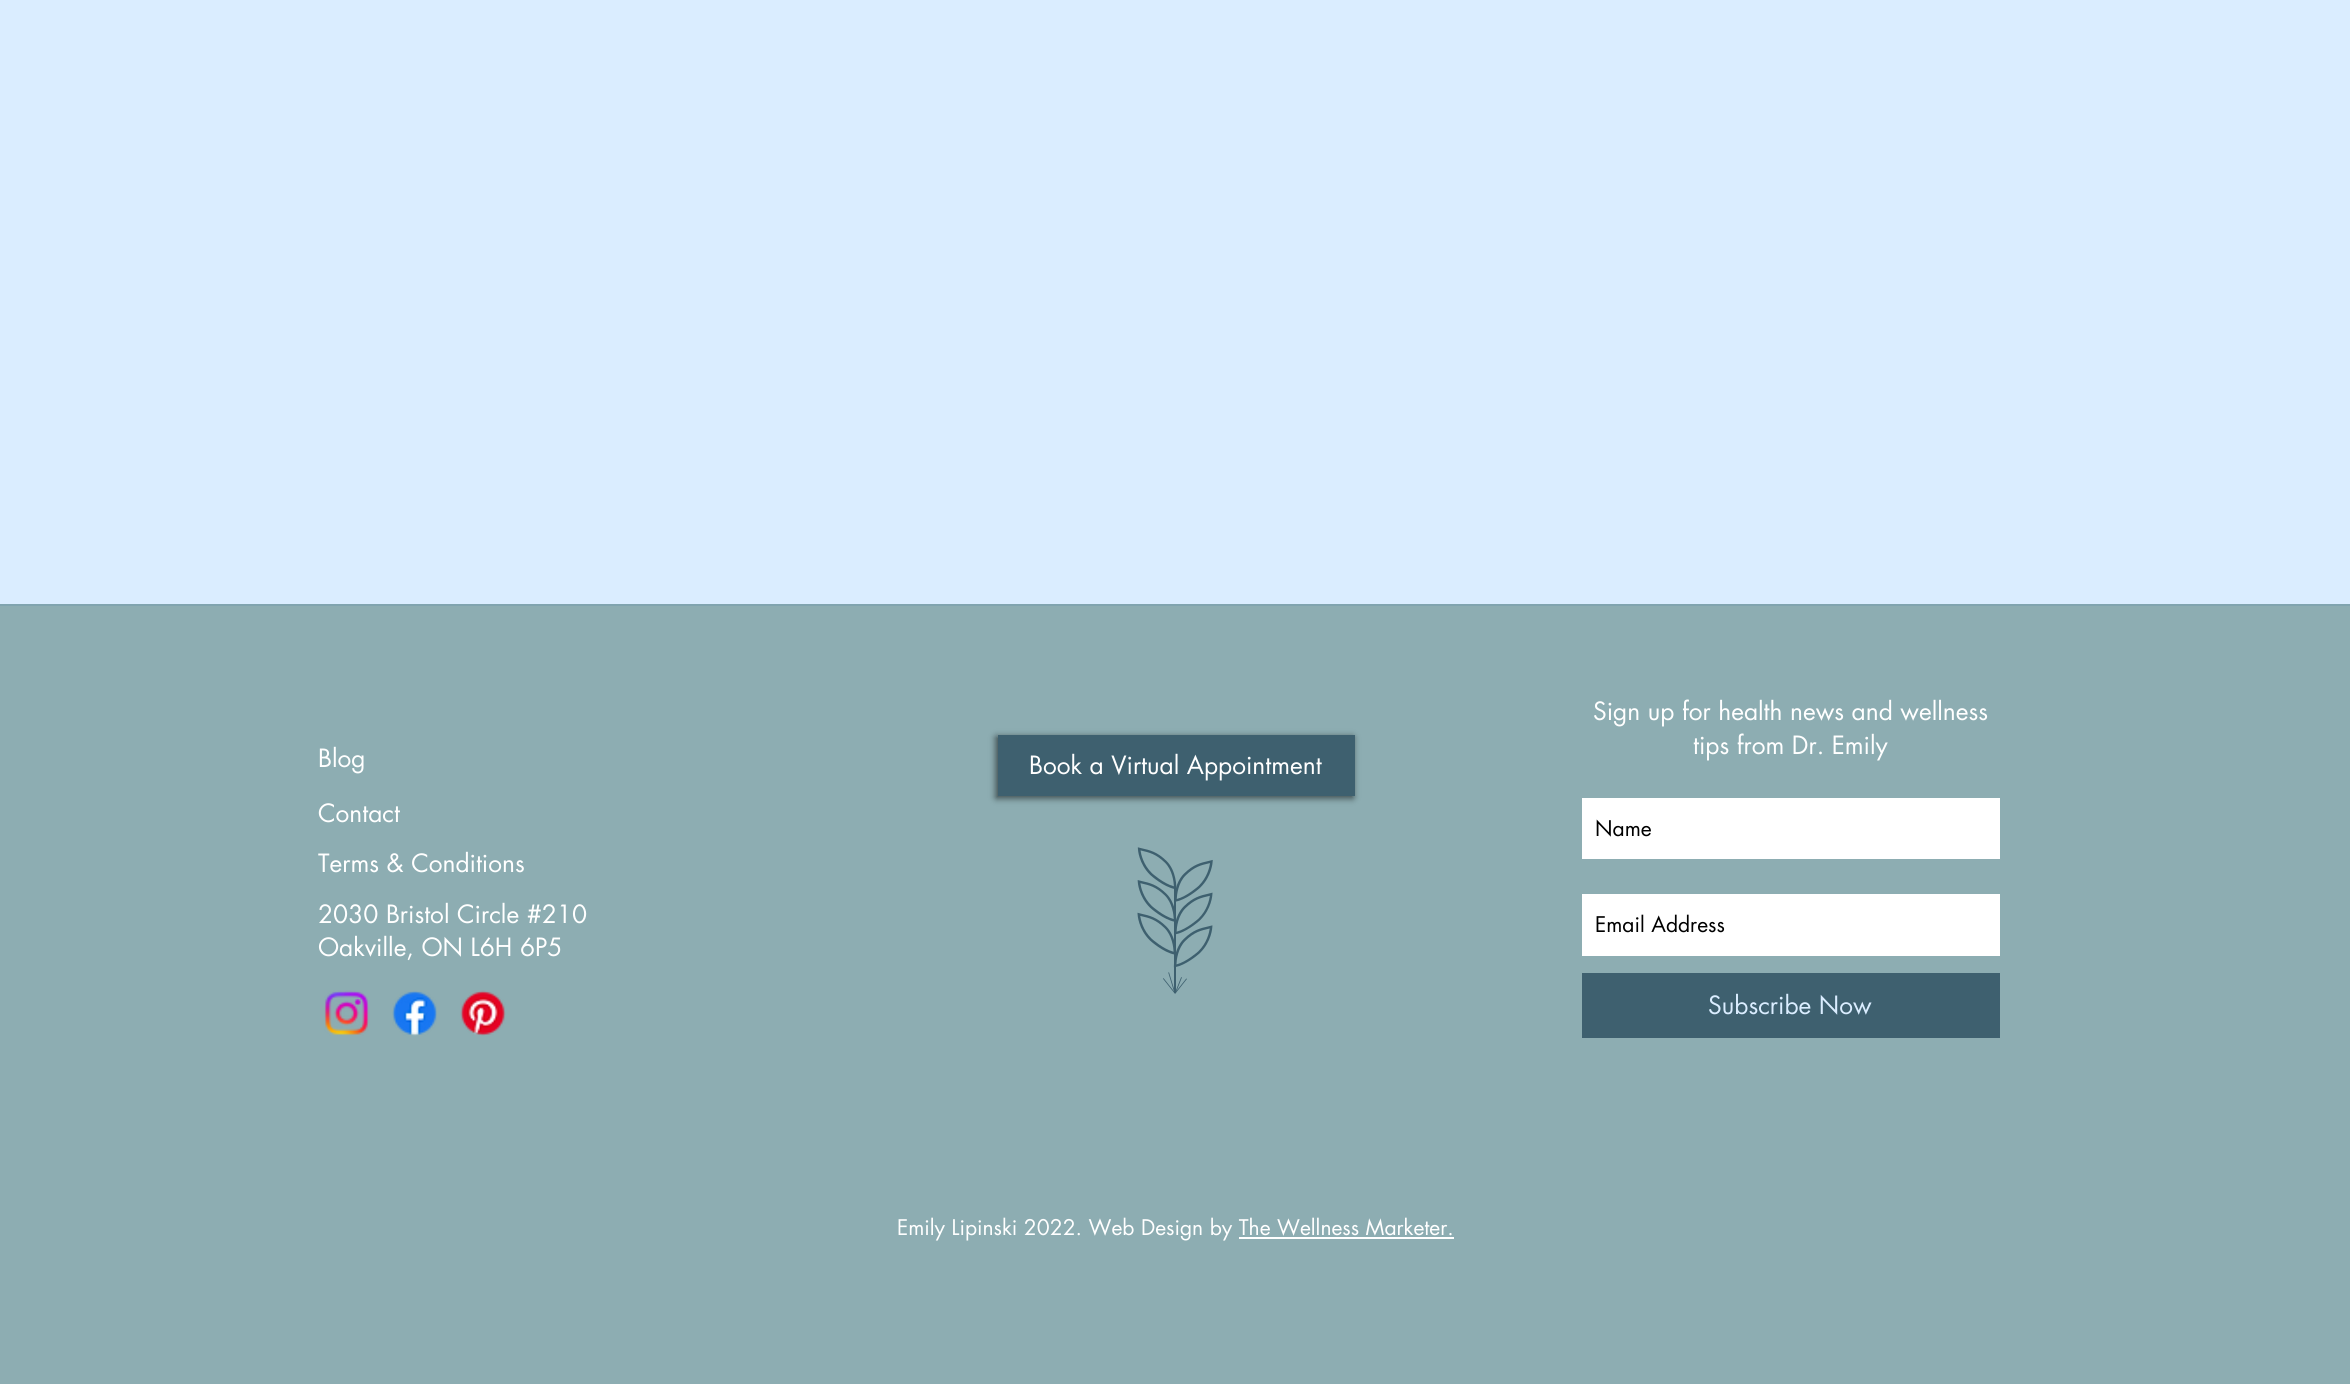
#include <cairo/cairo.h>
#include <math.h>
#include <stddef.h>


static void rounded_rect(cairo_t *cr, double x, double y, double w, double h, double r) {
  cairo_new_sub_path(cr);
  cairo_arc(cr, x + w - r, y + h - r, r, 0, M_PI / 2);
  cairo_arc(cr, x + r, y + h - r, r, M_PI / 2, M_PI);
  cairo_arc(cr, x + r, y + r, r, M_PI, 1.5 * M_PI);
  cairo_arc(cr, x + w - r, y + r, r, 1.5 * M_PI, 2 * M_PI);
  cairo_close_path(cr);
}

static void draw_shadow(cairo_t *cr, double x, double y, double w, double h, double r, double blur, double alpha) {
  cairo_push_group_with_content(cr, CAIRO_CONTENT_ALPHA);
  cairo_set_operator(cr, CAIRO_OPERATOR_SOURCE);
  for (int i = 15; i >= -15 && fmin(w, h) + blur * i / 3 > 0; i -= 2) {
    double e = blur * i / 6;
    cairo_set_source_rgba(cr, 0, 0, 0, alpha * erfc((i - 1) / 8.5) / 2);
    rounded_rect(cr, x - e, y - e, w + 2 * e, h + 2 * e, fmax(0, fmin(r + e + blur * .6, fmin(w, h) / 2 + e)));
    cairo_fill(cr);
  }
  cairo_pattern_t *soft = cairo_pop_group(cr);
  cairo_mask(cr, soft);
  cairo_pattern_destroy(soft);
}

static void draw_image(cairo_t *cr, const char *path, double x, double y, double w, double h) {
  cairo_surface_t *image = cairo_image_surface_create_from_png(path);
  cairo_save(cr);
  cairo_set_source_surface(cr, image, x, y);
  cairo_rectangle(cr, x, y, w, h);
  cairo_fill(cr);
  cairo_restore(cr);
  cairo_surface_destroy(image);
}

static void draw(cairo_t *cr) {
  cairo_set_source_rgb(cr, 218 / 255.0, 237 / 255.0, 1);
  cairo_paint(cr);
  cairo_set_source_rgb(cr, 141 / 255.0, 173 / 255.0, 178 / 255.0);
  cairo_rectangle(cr, 0, 606, 2350, 778);
  cairo_fill(cr);
  cairo_set_source_rgb(cr, 128 / 255.0, 164 / 255.0, 175 / 255.0);
  cairo_rectangle(cr, 0, 604, 2350, 2);
  cairo_fill(cr);
  cairo_set_source_rgb(cr, 0, 0, 0);
  draw_shadow(cr, 996, 737, 357, 61, 0, 3.5, 0.6);
  cairo_set_source_rgb(cr, 62 / 255.0, 96 / 255.0, 111 / 255.0);
  cairo_rectangle(cr, 998, 735, 357, 61);
  cairo_fill(cr);
  cairo_set_source_rgb(cr, 1, 1, 1);
  cairo_rectangle(cr, 1582, 798, 418, 61);
  cairo_fill(cr);
  cairo_rectangle(cr, 1582, 894, 418, 62);
  cairo_fill(cr);
  cairo_set_source_rgb(cr, 62 / 255.0, 96 / 255.0, 111 / 255.0);
  cairo_rectangle(cr, 1582, 973, 418, 65);
  cairo_fill(cr);
  draw_image(cr, "images/1.png", 1137, 847, 76, 147);
  draw_image(cr, "images/2.png", 324, 990, 46, 46);
  draw_image(cr, "images/3.png", 392, 991, 45, 45);
  draw_image(cr, "images/4.png", 460, 990, 46, 46);
  cairo_set_source_rgb(cr, 1, 1, 1);
  cairo_rectangle(cr, 1239, 1237, 215, 2);
  cairo_fill(cr);
  cairo_select_font_face(cr, "futura", CAIRO_FONT_SLANT_NORMAL, CAIRO_FONT_WEIGHT_NORMAL);
  cairo_set_font_size(cr, 24.5);
  cairo_move_to(cr, 318, 767);
  cairo_show_text(cr, "Blog");
  cairo_move_to(cr, 1029, 774);
  cairo_show_text(cr, "Book a Virtual Appointment");
  cairo_move_to(cr, 1593, 720);
  cairo_show_text(cr, "Sign up for health news and wellness");
  cairo_move_to(cr, 1693, 754);
  cairo_show_text(cr, "tips from Dr. Emily");
  cairo_set_font_size(cr, 21);
  cairo_set_source_rgb(cr, 0, 0, 0);
  cairo_move_to(cr, 1595, 836);
  cairo_show_text(cr, "Name");
  cairo_move_to(cr, 1595, 932);
  cairo_show_text(cr, "Email Address");
  cairo_set_font_size(cr, 24.5);
  cairo_set_source_rgb(cr, 218 / 255.0, 237 / 255.0, 1);
  cairo_move_to(cr, 1708, 1014);
  cairo_show_text(cr, "Subscribe Now");
  cairo_set_source_rgb(cr, 1, 1, 1);
  cairo_move_to(cr, 318, 822);
  cairo_show_text(cr, "Contact");
  cairo_move_to(cr, 318, 872);
  cairo_show_text(cr, "Terms & Conditions");
  cairo_move_to(cr, 318, 923);
  cairo_show_text(cr, "2030 Bristol Circle #210");
  cairo_move_to(cr, 318, 956);
  cairo_show_text(cr, "Oakville, ON L6H 6P5");
  cairo_set_font_size(cr, 21);
  cairo_move_to(cr, 897, 1235);
  cairo_show_text(cr, "Emily Lipinski 2022. Web Design by The Wellness Marketer.");
}

int main(void) {
  cairo_surface_t *surface = cairo_image_surface_create(CAIRO_FORMAT_RGB24, 2350, 1384);
  cairo_t *cr = cairo_create(surface);
  cairo_font_options_t *options = cairo_font_options_create();
  cairo_font_options_set_hint_metrics(options, CAIRO_HINT_METRICS_OFF);
  cairo_font_options_set_hint_style(options, CAIRO_HINT_STYLE_NONE);
  cairo_set_font_options(cr, options);
  cairo_set_miter_limit(cr, 4);
  draw(cr);
  cairo_surface_write_to_png(surface, "out.png");
  cairo_font_options_destroy(options);
  cairo_destroy(cr);
  cairo_surface_destroy(surface);
  return 0;
}
